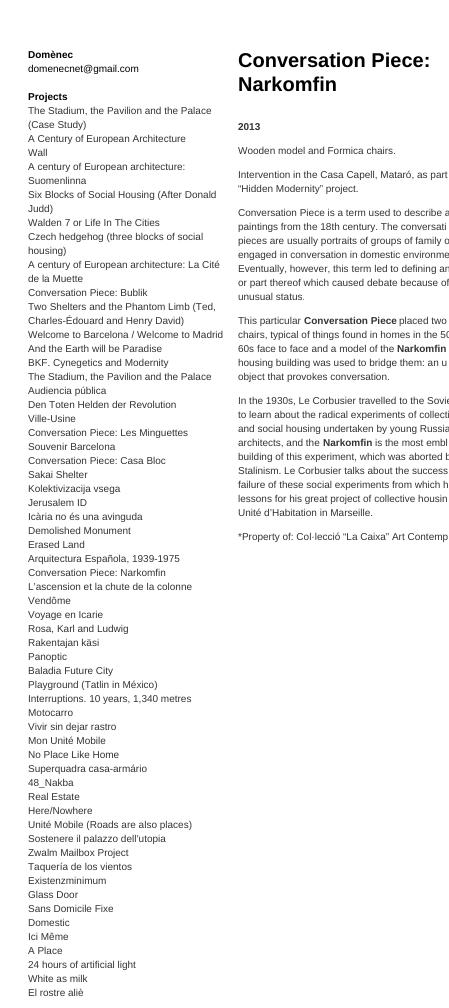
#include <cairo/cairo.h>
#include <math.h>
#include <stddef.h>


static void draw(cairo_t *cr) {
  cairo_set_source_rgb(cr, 1, 1, 1);
  cairo_paint(cr);
  cairo_select_font_face(cr, "Liberation Sans", CAIRO_FONT_SLANT_NORMAL, CAIRO_FONT_WEIGHT_BOLD);
  cairo_set_font_size(cr, 10);
  cairo_set_source_rgb(cr, 0, 0, 0);
  cairo_move_to(cr, 28, 58);
  cairo_show_text(cr, "Domènec");
  cairo_select_font_face(cr, "Liberation Sans", CAIRO_FONT_SLANT_NORMAL, CAIRO_FONT_WEIGHT_NORMAL);
  cairo_move_to(cr, 28, 72);
  cairo_show_text(cr, "domenecnet@gmail.com");
  cairo_select_font_face(cr, "Liberation Sans", CAIRO_FONT_SLANT_NORMAL, CAIRO_FONT_WEIGHT_BOLD);
  cairo_move_to(cr, 28, 100);
  cairo_show_text(cr, "Projects");
  cairo_select_font_face(cr, "Liberation Sans", CAIRO_FONT_SLANT_NORMAL, CAIRO_FONT_WEIGHT_NORMAL);
  cairo_set_source_rgb(cr, 51 / 255.0, 51 / 255.0, 51 / 255.0);
  cairo_move_to(cr, 28, 114);
  cairo_show_text(cr, "The Stadium, the Pavilion and the Palace");
  cairo_move_to(cr, 28, 128);
  cairo_show_text(cr, "(Case Study)");
  cairo_move_to(cr, 28, 142);
  cairo_show_text(cr, "A Century of European Architecture");
  cairo_move_to(cr, 28, 156);
  cairo_show_text(cr, "Wall");
  cairo_move_to(cr, 28, 170);
  cairo_show_text(cr, "A century of European architecture:");
  cairo_move_to(cr, 28, 184);
  cairo_show_text(cr, "Suomenlinna");
  cairo_move_to(cr, 28, 198);
  cairo_show_text(cr, "Six Blocks of Social Housing (After Donald");
  cairo_move_to(cr, 28, 212);
  cairo_show_text(cr, "Judd)");
  cairo_move_to(cr, 28, 226);
  cairo_show_text(cr, "Walden 7 or Life In The Cities");
  cairo_move_to(cr, 28, 240);
  cairo_show_text(cr, "Czech hedgehog (three blocks of social");
  cairo_move_to(cr, 28, 254);
  cairo_show_text(cr, "housing)");
  cairo_move_to(cr, 28, 268);
  cairo_show_text(cr, "A century of European architecture: La Cité");
  cairo_move_to(cr, 28, 282);
  cairo_show_text(cr, "de la Muette");
  cairo_move_to(cr, 28, 296);
  cairo_show_text(cr, "Conversation Piece: Bublik");
  cairo_move_to(cr, 28, 310);
  cairo_show_text(cr, "Two Shelters and the Phantom Limb (Ted,");
  cairo_move_to(cr, 28, 324);
  cairo_show_text(cr, "Charles-Édouard and Henry David)");
  cairo_move_to(cr, 28, 338);
  cairo_show_text(cr, "Welcome to Barcelona / Welcome to Madrid");
  cairo_move_to(cr, 28, 352);
  cairo_show_text(cr, "And the Earth will be Paradise");
  cairo_move_to(cr, 28, 366);
  cairo_show_text(cr, "BKF. Cynegetics and Modernity");
  cairo_move_to(cr, 28, 380);
  cairo_show_text(cr, "The Stadium, the Pavilion and the Palace");
  cairo_move_to(cr, 28, 394);
  cairo_show_text(cr, "Audiencia pública");
  cairo_move_to(cr, 28, 408);
  cairo_show_text(cr, "Den Toten Helden der Revolution");
  cairo_move_to(cr, 28, 422);
  cairo_show_text(cr, "Ville-Usine");
  cairo_move_to(cr, 28, 436);
  cairo_show_text(cr, "Conversation Piece: Les Minguettes");
  cairo_move_to(cr, 28, 450);
  cairo_show_text(cr, "Souvenir Barcelona");
  cairo_move_to(cr, 28, 464);
  cairo_show_text(cr, "Conversation Piece: Casa Bloc");
  cairo_move_to(cr, 28, 478);
  cairo_show_text(cr, "Sakai Shelter");
  cairo_move_to(cr, 28, 492);
  cairo_show_text(cr, "Kolektivizacija vsega");
  cairo_move_to(cr, 28, 506);
  cairo_show_text(cr, "Jerusalem ID");
  cairo_move_to(cr, 28, 520);
  cairo_show_text(cr, "Icària no és una avinguda");
  cairo_move_to(cr, 28, 534);
  cairo_show_text(cr, "Demolished Monument");
  cairo_move_to(cr, 28, 548);
  cairo_show_text(cr, "Erased Land");
  cairo_move_to(cr, 28, 562);
  cairo_show_text(cr, "Arquitectura Española, 1939-1975");
  cairo_move_to(cr, 28, 576);
  cairo_show_text(cr, "Conversation Piece: Narkomfin");
  cairo_move_to(cr, 28, 590);
  cairo_show_text(cr, "L’ascension et la chute de la colonne");
  cairo_move_to(cr, 28, 604);
  cairo_show_text(cr, "Vendôme");
  cairo_move_to(cr, 28, 618);
  cairo_show_text(cr, "Voyage en Icarie");
  cairo_move_to(cr, 28, 632);
  cairo_show_text(cr, "Rosa, Karl and Ludwig");
  cairo_move_to(cr, 28, 646);
  cairo_show_text(cr, "Rakentajan käsi");
  cairo_move_to(cr, 28, 660);
  cairo_show_text(cr, "Panoptic");
  cairo_move_to(cr, 28, 674);
  cairo_show_text(cr, "Baladia Future City");
  cairo_move_to(cr, 28, 688);
  cairo_show_text(cr, "Playground (Tatlin in México)");
  cairo_move_to(cr, 28, 702);
  cairo_show_text(cr, "Interruptions. 10 years, 1,340 metres");
  cairo_move_to(cr, 28, 716);
  cairo_show_text(cr, "Motocarro");
  cairo_move_to(cr, 28, 730);
  cairo_show_text(cr, "Vivir sin dejar rastro");
  cairo_move_to(cr, 28, 744);
  cairo_show_text(cr, "Mon Unité Mobile");
  cairo_move_to(cr, 28, 758);
  cairo_show_text(cr, "No Place Like Home");
  cairo_move_to(cr, 28, 772);
  cairo_show_text(cr, "Superquadra casa-armário");
  cairo_move_to(cr, 28, 786);
  cairo_show_text(cr, "48_Nakba");
  cairo_move_to(cr, 28, 800);
  cairo_show_text(cr, "Real Estate");
  cairo_move_to(cr, 28, 814);
  cairo_show_text(cr, "Here/Nowhere");
  cairo_move_to(cr, 28, 828);
  cairo_show_text(cr, "Unité Mobile (Roads are also places)");
  cairo_move_to(cr, 28, 842);
  cairo_show_text(cr, "Sostenere il palazzo dell’utopia");
  cairo_move_to(cr, 28, 856);
  cairo_show_text(cr, "Zwalm Mailbox Project");
  cairo_move_to(cr, 28, 870);
  cairo_show_text(cr, "Taquería de los vientos");
  cairo_move_to(cr, 28, 884);
  cairo_show_text(cr, "Existenzminimum");
  cairo_move_to(cr, 28, 898);
  cairo_show_text(cr, "Glass Door");
  cairo_move_to(cr, 28, 912);
  cairo_show_text(cr, "Sans Domicile Fixe");
  cairo_move_to(cr, 28, 926);
  cairo_show_text(cr, "Domestic");
  cairo_move_to(cr, 28, 940);
  cairo_show_text(cr, "Ici Même");
  cairo_move_to(cr, 28, 954);
  cairo_show_text(cr, "A Place");
  cairo_move_to(cr, 28, 968);
  cairo_show_text(cr, "24 hours of artificial light");
  cairo_move_to(cr, 28, 982);
  cairo_show_text(cr, "White as milk");
  cairo_move_to(cr, 28, 996);
  cairo_show_text(cr, "El rostre aliè");
  cairo_select_font_face(cr, "Liberation Sans", CAIRO_FONT_SLANT_NORMAL, CAIRO_FONT_WEIGHT_BOLD);
  cairo_set_font_size(cr, 20);
  cairo_set_source_rgb(cr, 0, 0, 0);
  cairo_move_to(cr, 238, 67);
  cairo_show_text(cr, "Conversation Piece:");
  cairo_move_to(cr, 238, 91);
  cairo_show_text(cr, "Narkomfin");
  cairo_set_font_size(cr, 10);
  cairo_set_source_rgb(cr, 51 / 255.0, 51 / 255.0, 51 / 255.0);
  cairo_move_to(cr, 238, 130);
  cairo_show_text(cr, "2013");
  cairo_select_font_face(cr, "Liberation Sans", CAIRO_FONT_SLANT_NORMAL, CAIRO_FONT_WEIGHT_NORMAL);
  cairo_move_to(cr, 238, 154);
  cairo_show_text(cr, "Wooden model and Formica chairs.");
  cairo_move_to(cr, 238, 178);
  cairo_show_text(cr, "Intervention in the Casa Capell, Mataró, as part");
  cairo_move_to(cr, 238, 192);
  cairo_show_text(cr, "“Hidden Modernity” project.");
  cairo_move_to(cr, 238, 216);
  cairo_show_text(cr, "Conversation Piece is a term used to describe a");
  cairo_move_to(cr, 238, 230);
  cairo_show_text(cr, "paintings from the 18th century. The conversati");
  cairo_move_to(cr, 238, 244);
  cairo_show_text(cr, "pieces are usually portraits of groups of family o");
  cairo_move_to(cr, 238, 258);
  cairo_show_text(cr, "engaged in conversation in domestic environme");
  cairo_move_to(cr, 238, 272);
  cairo_show_text(cr, "Eventually, however, this term led to defining an");
  cairo_move_to(cr, 238, 286);
  cairo_show_text(cr, "or part thereof which caused debate because of");
  cairo_move_to(cr, 238, 300);
  cairo_show_text(cr, "unusual status.");
  cairo_move_to(cr, 238, 324);
  cairo_show_text(cr, "This particular");
  cairo_select_font_face(cr, "Liberation Sans", CAIRO_FONT_SLANT_NORMAL, CAIRO_FONT_WEIGHT_BOLD);
  cairo_move_to(cr, 304, 324);
  cairo_show_text(cr, "Conversation Piece");
  cairo_select_font_face(cr, "Liberation Sans", CAIRO_FONT_SLANT_NORMAL, CAIRO_FONT_WEIGHT_NORMAL);
  cairo_move_to(cr, 399, 324);
  cairo_show_text(cr, "placed two");
  cairo_move_to(cr, 238, 338);
  cairo_show_text(cr, "chairs, typical of things found in homes in the 50");
  cairo_move_to(cr, 238, 352);
  cairo_show_text(cr, "60s face to face and a model of the");
  cairo_select_font_face(cr, "Liberation Sans", CAIRO_FONT_SLANT_NORMAL, CAIRO_FONT_WEIGHT_BOLD);
  cairo_move_to(cr, 397, 352);
  cairo_show_text(cr, "Narkomfin");
  cairo_select_font_face(cr, "Liberation Sans", CAIRO_FONT_SLANT_NORMAL, CAIRO_FONT_WEIGHT_NORMAL);
  cairo_move_to(cr, 238, 366);
  cairo_show_text(cr, "housing building was used to bridge them: an u");
  cairo_move_to(cr, 238, 380);
  cairo_show_text(cr, "object that provokes conversation.");
  cairo_move_to(cr, 238, 404);
  cairo_show_text(cr, "In the 1930s, Le Corbusier travelled to the Sovie");
  cairo_move_to(cr, 238, 418);
  cairo_show_text(cr, "to learn about the radical experiments of collecti");
  cairo_move_to(cr, 238, 432);
  cairo_show_text(cr, "and social housing undertaken by young Russia");
  cairo_move_to(cr, 238, 446);
  cairo_show_text(cr, "architects, and the");
  cairo_select_font_face(cr, "Liberation Sans", CAIRO_FONT_SLANT_NORMAL, CAIRO_FONT_WEIGHT_BOLD);
  cairo_move_to(cr, 323, 446);
  cairo_show_text(cr, "Narkomfin");
  cairo_select_font_face(cr, "Liberation Sans", CAIRO_FONT_SLANT_NORMAL, CAIRO_FONT_WEIGHT_NORMAL);
  cairo_move_to(cr, 375, 446);
  cairo_show_text(cr, "is the most embl");
  cairo_move_to(cr, 238, 460);
  cairo_show_text(cr, "building of this experiment, which was aborted b");
  cairo_move_to(cr, 238, 474);
  cairo_show_text(cr, "Stalinism. Le Corbusier talks about the success");
  cairo_move_to(cr, 238, 488);
  cairo_show_text(cr, "failure of these social experiments from which h");
  cairo_move_to(cr, 238, 502);
  cairo_show_text(cr, "lessons for his great project of collective housin");
  cairo_move_to(cr, 238, 516);
  cairo_show_text(cr, "Unité d’Habitation in Marseille.");
  cairo_move_to(cr, 238, 540);
  cairo_show_text(cr, "*Property of: Col·lecció “La Caixa” Art Contemp");
}

int main(void) {
  cairo_surface_t *surface = cairo_image_surface_create(CAIRO_FORMAT_RGB24, 449, 1008);
  cairo_t *cr = cairo_create(surface);
  cairo_font_options_t *options = cairo_font_options_create();
  cairo_font_options_set_hint_metrics(options, CAIRO_HINT_METRICS_OFF);
  cairo_font_options_set_hint_style(options, CAIRO_HINT_STYLE_NONE);
  cairo_set_font_options(cr, options);
  cairo_set_miter_limit(cr, 4);
  draw(cr);
  cairo_surface_write_to_png(surface, "out.png");
  cairo_font_options_destroy(options);
  cairo_destroy(cr);
  cairo_surface_destroy(surface);
  return 0;
}
